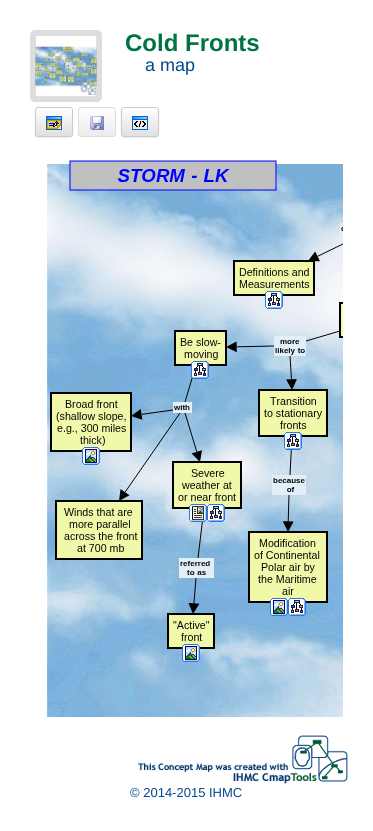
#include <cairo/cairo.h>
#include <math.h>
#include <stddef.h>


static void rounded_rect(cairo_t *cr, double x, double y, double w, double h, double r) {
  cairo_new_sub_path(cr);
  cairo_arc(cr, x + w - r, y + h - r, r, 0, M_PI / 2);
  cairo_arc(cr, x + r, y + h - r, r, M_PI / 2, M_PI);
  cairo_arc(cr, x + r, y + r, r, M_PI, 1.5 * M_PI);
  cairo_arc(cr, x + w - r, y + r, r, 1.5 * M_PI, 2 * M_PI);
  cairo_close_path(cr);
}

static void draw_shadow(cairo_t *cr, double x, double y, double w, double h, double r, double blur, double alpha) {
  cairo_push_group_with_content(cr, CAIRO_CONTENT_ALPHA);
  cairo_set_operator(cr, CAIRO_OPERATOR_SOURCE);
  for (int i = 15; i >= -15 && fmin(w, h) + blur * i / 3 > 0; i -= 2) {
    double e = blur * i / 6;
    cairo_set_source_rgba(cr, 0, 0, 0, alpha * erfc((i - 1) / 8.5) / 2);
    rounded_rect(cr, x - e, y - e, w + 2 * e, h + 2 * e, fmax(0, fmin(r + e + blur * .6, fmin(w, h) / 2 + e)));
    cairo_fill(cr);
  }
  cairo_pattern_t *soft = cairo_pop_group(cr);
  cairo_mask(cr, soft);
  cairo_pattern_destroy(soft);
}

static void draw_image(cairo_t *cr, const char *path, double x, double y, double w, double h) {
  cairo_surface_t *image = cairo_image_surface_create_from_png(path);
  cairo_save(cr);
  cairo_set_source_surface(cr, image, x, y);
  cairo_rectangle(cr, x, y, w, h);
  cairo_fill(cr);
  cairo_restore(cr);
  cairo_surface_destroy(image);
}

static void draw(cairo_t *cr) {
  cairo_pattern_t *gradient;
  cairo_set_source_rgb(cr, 1, 1, 1);
  cairo_paint(cr);
  rounded_rect(cr, 32.5, 32.5, 67, 67, 2.5);
  cairo_set_source_rgb(cr, 221 / 255.0, 221 / 255.0, 221 / 255.0);
  cairo_set_line_width(cr, 5);
  cairo_stroke(cr);
  draw_image(cr, "images/1.png", 35, 35, 62, 62);
  cairo_set_source_rgb(cr, 0, 0, 0);
  draw_shadow(cr, 35, 108, 38, 30, 3, 0.5, 0.07);
  cairo_save(cr);
  rounded_rect(cr, 35, 107, 38, 30, 3);
  cairo_clip(cr);
  gradient = cairo_pattern_create_linear(54, 108, 54, 136);
  cairo_pattern_add_color_stop_rgba(gradient, 0, 1, 1, 1, 1);
  cairo_pattern_add_color_stop_rgba(gradient, 1, 224 / 255.0, 224 / 255.0, 224 / 255.0, 1);
  cairo_set_source(cr, gradient);
  cairo_pattern_destroy(gradient);
  cairo_rectangle(cr, 35, 108, 38, 28);
  cairo_fill(cr);
  cairo_restore(cr);
  rounded_rect(cr, 35.5, 107.5, 37, 29, 2.5);
  cairo_set_source_rgb(cr, 204 / 255.0, 204 / 255.0, 204 / 255.0);
  cairo_set_line_width(cr, 1);
  cairo_stroke(cr);
  draw_image(cr, "images/2.png", 46, 116, 16, 14);
  cairo_save(cr);
  rounded_rect(cr, 78, 107, 38, 30, 3);
  cairo_clip(cr);
  gradient = cairo_pattern_create_linear(97, 108, 97, 136);
  cairo_pattern_add_color_stop_rgba(gradient, 0, 1, 1, 1, 1);
  cairo_pattern_add_color_stop_rgba(gradient, 1, 235 / 255.0, 235 / 255.0, 235 / 255.0, 1);
  cairo_set_source(cr, gradient);
  cairo_pattern_destroy(gradient);
  cairo_rectangle(cr, 78, 108, 38, 28);
  cairo_fill(cr);
  cairo_restore(cr);
  rounded_rect(cr, 78.5, 107.5, 37, 29, 2.5);
  cairo_set_source_rgb(cr, 222 / 255.0, 222 / 255.0, 222 / 255.0);
  cairo_stroke(cr);
  draw_image(cr, "images/3.png", 90, 116, 14, 14);
  cairo_set_source_rgb(cr, 0, 0, 0);
  draw_shadow(cr, 121, 108, 38, 30, 3, 0.5, 0.07);
  cairo_save(cr);
  rounded_rect(cr, 121, 107, 38, 30, 3);
  cairo_clip(cr);
  gradient = cairo_pattern_create_linear(140, 108, 140, 136);
  cairo_pattern_add_color_stop_rgba(gradient, 0, 1, 1, 1, 1);
  cairo_pattern_add_color_stop_rgba(gradient, 1, 224 / 255.0, 224 / 255.0, 224 / 255.0, 1);
  cairo_set_source(cr, gradient);
  cairo_pattern_destroy(gradient);
  cairo_rectangle(cr, 121, 108, 38, 28);
  cairo_fill(cr);
  cairo_restore(cr);
  rounded_rect(cr, 121.5, 107.5, 37, 29, 2.5);
  cairo_set_source_rgb(cr, 204 / 255.0, 204 / 255.0, 204 / 255.0);
  cairo_stroke(cr);
  draw_image(cr, "images/4.png", 132, 116, 16, 14);
  draw_image(cr, "images/5.png", 47, 160, 296, 557);
  draw_image(cr, "images/6.png", 138, 735, 210, 49);
  cairo_select_font_face(cr, "Liberation Sans", CAIRO_FONT_SLANT_NORMAL, CAIRO_FONT_WEIGHT_BOLD);
  cairo_set_font_size(cr, 24);
  cairo_set_source_rgb(cr, 0, 115 / 255.0, 67 / 255.0);
  cairo_move_to(cr, 125, 51);
  cairo_show_text(cr, "Cold Fronts");
  cairo_select_font_face(cr, "Liberation Sans", CAIRO_FONT_SLANT_NORMAL, CAIRO_FONT_WEIGHT_NORMAL);
  cairo_set_font_size(cr, 18);
  cairo_set_source_rgb(cr, 0, 72 / 255.0, 141 / 255.0);
  cairo_move_to(cr, 145, 71);
  cairo_show_text(cr, "a map");
  cairo_set_font_size(cr, 13);
  cairo_move_to(cr, 130, 797);
  cairo_show_text(cr, "© 2014-2015 IHMC");
}

int main(void) {
  cairo_surface_t *surface = cairo_image_surface_create(CAIRO_FORMAT_RGB24, 373, 831);
  cairo_t *cr = cairo_create(surface);
  cairo_font_options_t *options = cairo_font_options_create();
  cairo_font_options_set_hint_metrics(options, CAIRO_HINT_METRICS_OFF);
  cairo_font_options_set_hint_style(options, CAIRO_HINT_STYLE_NONE);
  cairo_set_font_options(cr, options);
  cairo_set_miter_limit(cr, 4);
  draw(cr);
  cairo_surface_write_to_png(surface, "out.png");
  cairo_font_options_destroy(options);
  cairo_destroy(cr);
  cairo_surface_destroy(surface);
  return 0;
}
